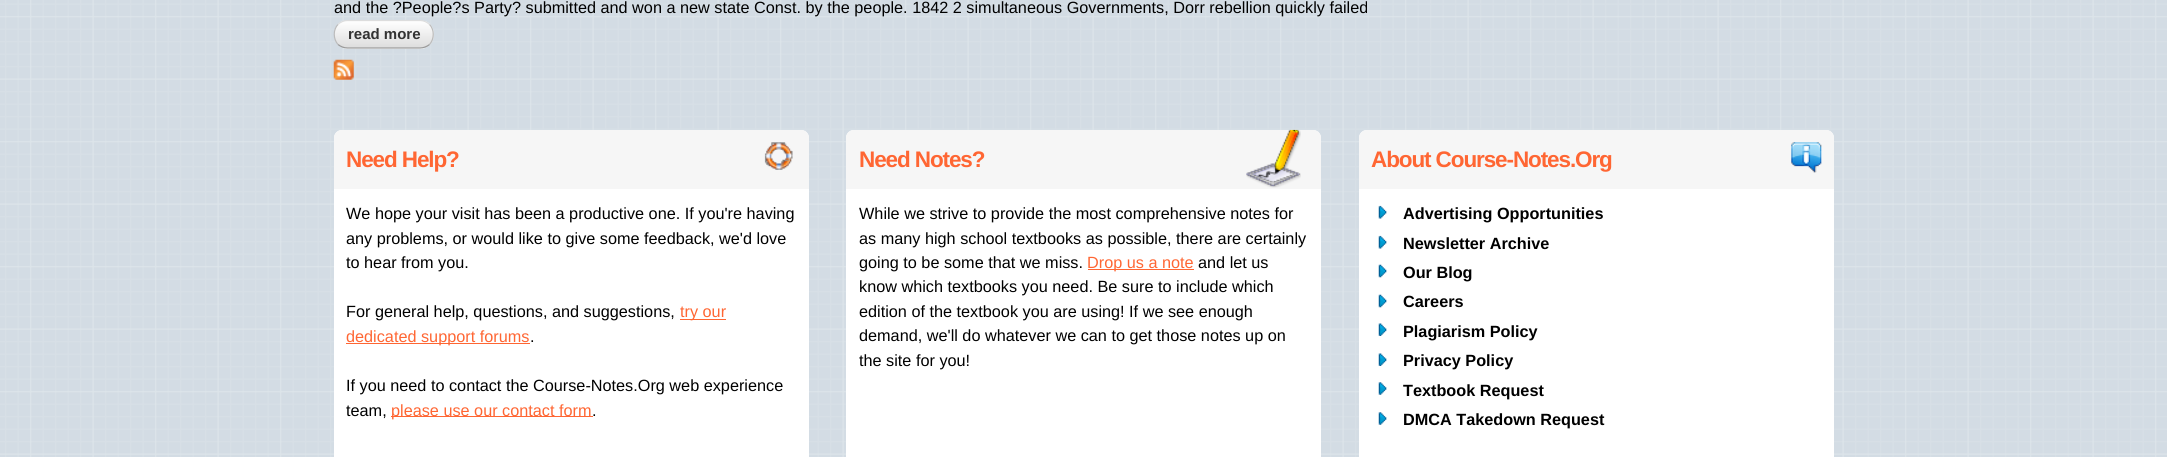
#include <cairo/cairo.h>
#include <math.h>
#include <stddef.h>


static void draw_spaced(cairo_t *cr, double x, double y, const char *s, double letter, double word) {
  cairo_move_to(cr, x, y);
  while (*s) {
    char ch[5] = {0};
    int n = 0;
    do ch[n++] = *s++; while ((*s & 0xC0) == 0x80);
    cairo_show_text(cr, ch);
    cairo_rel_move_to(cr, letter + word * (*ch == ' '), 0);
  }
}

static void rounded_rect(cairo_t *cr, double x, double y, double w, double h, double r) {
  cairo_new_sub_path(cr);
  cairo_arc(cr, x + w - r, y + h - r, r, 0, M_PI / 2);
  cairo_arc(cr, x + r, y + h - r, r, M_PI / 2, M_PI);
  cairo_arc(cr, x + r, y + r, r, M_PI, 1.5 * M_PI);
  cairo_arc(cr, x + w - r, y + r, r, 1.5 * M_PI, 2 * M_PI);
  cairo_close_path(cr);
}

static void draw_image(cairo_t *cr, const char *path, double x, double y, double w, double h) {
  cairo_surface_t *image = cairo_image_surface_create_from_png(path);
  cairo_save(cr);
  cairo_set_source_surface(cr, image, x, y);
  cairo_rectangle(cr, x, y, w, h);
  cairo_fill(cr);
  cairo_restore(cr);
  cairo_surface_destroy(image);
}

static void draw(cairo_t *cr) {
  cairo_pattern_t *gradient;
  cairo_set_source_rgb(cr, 1, 1, 1);
  cairo_paint(cr);
  draw_image(cr, "images/1.png", 0, 0, 2167, 457);
  cairo_save(cr);
  rounded_rect(cr, 334, 20, 100, 29, 14);
  cairo_clip(cr);
  gradient = cairo_pattern_create_linear(335, 21, 335, 48);
  cairo_pattern_add_color_stop_rgba(gradient, 0, 1, 1, 1, 1);
  cairo_pattern_add_color_stop_rgba(gradient, 1, 221 / 255.0, 221 / 255.0, 221 / 255.0, 1);
  cairo_set_source(cr, gradient);
  cairo_pattern_destroy(gradient);
  cairo_rectangle(cr, 334, 21, 100, 27);
  cairo_fill(cr);
  gradient = cairo_pattern_create_linear(335, 48, 335, 74);
  cairo_pattern_add_color_stop_rgba(gradient, 0, 1, 1, 1, 1);
  cairo_pattern_add_color_stop_rgba(gradient, 1, 221 / 255.0, 221 / 255.0, 221 / 255.0, 1);
  cairo_set_source(cr, gradient);
  cairo_pattern_destroy(gradient);
  cairo_rectangle(cr, 343, 48, 82, 1);
  cairo_fill(cr);
  cairo_restore(cr);
  cairo_new_path(cr);
  cairo_move_to(cr, 338, 24.5);
  cairo_curve_to(cr, 340.5, 22, 344, 20.5, 347.5, 20.5);
  cairo_line_to(cr, 420, 20.5);
  cairo_curve_to(cr, 423.5, 20.5, 427, 22, 429.5, 24.5);
  cairo_set_source_rgb(cr, 221 / 255.0, 221 / 255.0, 221 / 255.0);
  cairo_set_line_width(cr, 1.2);
  cairo_stroke(cr);
  cairo_new_path(cr);
  cairo_move_to(cr, 429.5, 24.5);
  cairo_curve_to(cr, 434.5, 29.5, 434.5, 39, 429.5, 44.5);
  cairo_set_source_rgb(cr, 187 / 255.0, 187 / 255.0, 187 / 255.0);
  cairo_stroke(cr);
  cairo_new_path(cr);
  cairo_move_to(cr, 429.5, 44.5);
  cairo_curve_to(cr, 427, 46.5, 423.5, 48, 420, 48);
  cairo_line_to(cr, 347.5, 48);
  cairo_curve_to(cr, 344, 48, 340.5, 46.5, 338, 44.5);
  cairo_set_source_rgb(cr, 153 / 255.0, 153 / 255.0, 153 / 255.0);
  cairo_stroke(cr);
  cairo_new_path(cr);
  cairo_move_to(cr, 338, 44.5);
  cairo_curve_to(cr, 333, 39, 333, 29.5, 338, 24.5);
  cairo_set_source_rgb(cr, 187 / 255.0, 187 / 255.0, 187 / 255.0);
  cairo_stroke(cr);
  draw_image(cr, "images/2.png", 333, 59, 21, 21);
  cairo_set_source_rgb(cr, 1, 1, 1);
  rounded_rect(cr, 334, 130, 475, 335, 8);
  cairo_fill(cr);
  cairo_set_source_rgb(cr, 246 / 255.0, 246 / 255.0, 246 / 255.0);
  cairo_new_path(cr);
  cairo_move_to(cr, 342, 130);
  cairo_line_to(cr, 801, 130);
  cairo_curve_to(cr, 805.5, 130, 809, 133.5, 809, 138);
  cairo_line_to(cr, 809, 189);
  cairo_line_to(cr, 334, 189);
  cairo_line_to(cr, 334, 138);
  cairo_curve_to(cr, 334, 133.5, 337.5, 130, 342, 130);
  cairo_close_path(cr);
  cairo_fill(cr);
  draw_image(cr, "images/3.png", 764, 142, 29, 28);
  cairo_set_source_rgb(cr, 1, 102 / 255.0, 51 / 255.0);
  cairo_rectangle(cr, 680, 319, 46, 1);
  cairo_fill(cr);
  cairo_rectangle(cr, 346, 343, 184, 1);
  cairo_fill(cr);
  cairo_rectangle(cr, 391, 416, 202, 1);
  cairo_fill(cr);
  cairo_set_source_rgb(cr, 1, 1, 1);
  rounded_rect(cr, 846, 130, 475, 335, 8);
  cairo_fill(cr);
  cairo_set_source_rgb(cr, 246 / 255.0, 246 / 255.0, 246 / 255.0);
  cairo_new_path(cr);
  cairo_move_to(cr, 854, 130);
  cairo_line_to(cr, 1313, 130);
  cairo_curve_to(cr, 1317.5, 130, 1321, 133.5, 1321, 138);
  cairo_line_to(cr, 1321, 189);
  cairo_line_to(cr, 846, 189);
  cairo_line_to(cr, 846, 138);
  cairo_curve_to(cr, 846, 133.5, 849.5, 130, 854, 130);
  cairo_close_path(cr);
  cairo_fill(cr);
  draw_image(cr, "images/4.png", 1246, 129, 55, 59);
  cairo_set_source_rgb(cr, 1, 102 / 255.0, 51 / 255.0);
  cairo_rectangle(cr, 1088, 269, 106, 1);
  cairo_fill(cr);
  cairo_set_source_rgb(cr, 1, 1, 1);
  rounded_rect(cr, 1359, 130, 475, 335, 8);
  cairo_fill(cr);
  cairo_set_source_rgb(cr, 246 / 255.0, 246 / 255.0, 246 / 255.0);
  cairo_new_path(cr);
  cairo_move_to(cr, 1367, 130);
  cairo_line_to(cr, 1826, 130);
  cairo_curve_to(cr, 1830.5, 130, 1834, 133.5, 1834, 138);
  cairo_line_to(cr, 1834, 189);
  cairo_line_to(cr, 1359, 189);
  cairo_line_to(cr, 1359, 138);
  cairo_curve_to(cr, 1359, 133.5, 1362.5, 130, 1367, 130);
  cairo_close_path(cr);
  cairo_fill(cr);
  draw_image(cr, "images/5.png", 1791, 142, 31, 31);
  draw_image(cr, "images/6.png", 1378, 205, 9, 14);
  draw_image(cr, "images/6.png", 1378, 235, 9, 14);
  draw_image(cr, "images/7.png", 1378, 264, 9, 14);
  draw_image(cr, "images/7.png", 1378, 294, 9, 14);
  draw_image(cr, "images/8.png", 1378, 323, 9, 13);
  draw_image(cr, "images/8.png", 1378, 353, 9, 13);
  draw_image(cr, "images/9.png", 1378, 382, 9, 13);
  draw_image(cr, "images/9.png", 1378, 412, 9, 13);
  cairo_select_font_face(cr, "Liberation Sans", CAIRO_FONT_SLANT_NORMAL, CAIRO_FONT_WEIGHT_NORMAL);
  cairo_set_font_size(cr, 16.25);
  cairo_set_source_rgb(cr, 0, 0, 0);
  cairo_move_to(cr, 334, 13);
  cairo_show_text(cr, "and the ?People?s Party? submitted and won a new state Const. by the people. 1842 2 simultaneous Governments, Dorr rebellion quickly failed");
  cairo_select_font_face(cr, "Liberation Sans", CAIRO_FONT_SLANT_NORMAL, CAIRO_FONT_WEIGHT_BOLD);
  cairo_set_font_size(cr, 15);
  cairo_set_source_rgb(cr, 51 / 255.0, 51 / 255.0, 51 / 255.0);
  cairo_move_to(cr, 348, 39);
  cairo_show_text(cr, "read more");
  cairo_set_font_size(cr, 22.5);
  cairo_set_source_rgb(cr, 1, 102 / 255.0, 51 / 255.0);
  draw_spaced(cr, 346, 167, "Need Help?", -1.1, 0);
  cairo_select_font_face(cr, "Liberation Sans", CAIRO_FONT_SLANT_NORMAL, CAIRO_FONT_WEIGHT_NORMAL);
  cairo_set_font_size(cr, 16.25);
  cairo_set_source_rgb(cr, 0, 0, 0);
  cairo_move_to(cr, 346, 219);
  cairo_show_text(cr, "We hope your visit has been a productive one. If you're having");
  cairo_move_to(cr, 346, 244);
  cairo_show_text(cr, "any problems, or would like to give some feedback, we'd love");
  cairo_move_to(cr, 346, 268);
  cairo_show_text(cr, "to hear from you.");
  cairo_move_to(cr, 346, 317);
  cairo_show_text(cr, "For general help, questions, and suggestions,");
  cairo_set_source_rgb(cr, 1, 102 / 255.0, 51 / 255.0);
  cairo_move_to(cr, 680, 317);
  cairo_show_text(cr, "try our");
  cairo_move_to(cr, 346, 342);
  cairo_show_text(cr, "dedicated support forums");
  cairo_set_source_rgb(cr, 0, 0, 0);
  cairo_move_to(cr, 530, 342);
  cairo_show_text(cr, ".");
  cairo_move_to(cr, 346, 391);
  cairo_show_text(cr, "If you need to contact the Course-Notes.Org web experience");
  cairo_move_to(cr, 346, 416);
  cairo_show_text(cr, "team,");
  cairo_set_source_rgb(cr, 1, 102 / 255.0, 51 / 255.0);
  cairo_move_to(cr, 391, 416);
  cairo_show_text(cr, "please use our contact form");
  cairo_set_source_rgb(cr, 0, 0, 0);
  cairo_move_to(cr, 592, 416);
  cairo_show_text(cr, ".");
  cairo_select_font_face(cr, "Liberation Sans", CAIRO_FONT_SLANT_NORMAL, CAIRO_FONT_WEIGHT_BOLD);
  cairo_set_font_size(cr, 22.5);
  cairo_set_source_rgb(cr, 1, 102 / 255.0, 51 / 255.0);
  draw_spaced(cr, 859, 167, "Need Notes?", -1.1, 0);
  cairo_select_font_face(cr, "Liberation Sans", CAIRO_FONT_SLANT_NORMAL, CAIRO_FONT_WEIGHT_NORMAL);
  cairo_set_font_size(cr, 16.25);
  cairo_set_source_rgb(cr, 0, 0, 0);
  cairo_move_to(cr, 859, 219);
  cairo_show_text(cr, "While we strive to provide the most comprehensive notes for");
  cairo_move_to(cr, 859, 244);
  cairo_show_text(cr, "as many high school textbooks as possible, there are certainly");
  cairo_move_to(cr, 859, 268);
  cairo_show_text(cr, "going to be some that we miss.");
  cairo_set_source_rgb(cr, 1, 102 / 255.0, 51 / 255.0);
  cairo_move_to(cr, 1087, 268);
  cairo_show_text(cr, "Drop us a note");
  cairo_set_source_rgb(cr, 0, 0, 0);
  cairo_move_to(cr, 1198, 268);
  cairo_show_text(cr, "and let us");
  cairo_move_to(cr, 859, 292);
  cairo_show_text(cr, "know which textbooks you need. Be sure to include which");
  cairo_move_to(cr, 859, 317);
  cairo_show_text(cr, "edition of the textbook you are using! If we see enough");
  cairo_move_to(cr, 859, 341);
  cairo_show_text(cr, "demand, we'll do whatever we can to get those notes up on");
  cairo_move_to(cr, 859, 366);
  cairo_show_text(cr, "the site for you!");
  cairo_select_font_face(cr, "Liberation Sans", CAIRO_FONT_SLANT_NORMAL, CAIRO_FONT_WEIGHT_BOLD);
  cairo_set_font_size(cr, 22.5);
  cairo_set_source_rgb(cr, 1, 102 / 255.0, 51 / 255.0);
  draw_spaced(cr, 1371, 167, "About Course-Notes.Org", -1.1, 0);
  cairo_set_font_size(cr, 16.25);
  cairo_set_source_rgb(cr, 0, 0, 0);
  cairo_move_to(cr, 1403, 219);
  cairo_show_text(cr, "Advertising Opportunities");
  cairo_move_to(cr, 1403, 249);
  cairo_show_text(cr, "Newsletter Archive");
  cairo_move_to(cr, 1403, 278);
  cairo_show_text(cr, "Our Blog");
  cairo_move_to(cr, 1403, 307);
  cairo_show_text(cr, "Careers");
  cairo_move_to(cr, 1403, 337);
  cairo_show_text(cr, "Plagiarism Policy");
  cairo_move_to(cr, 1403, 366);
  cairo_show_text(cr, "Privacy Policy");
  cairo_move_to(cr, 1403, 396);
  cairo_show_text(cr, "Textbook Request");
  cairo_move_to(cr, 1403, 425);
  cairo_show_text(cr, "DMCA Takedown Request");
}

int main(void) {
  cairo_surface_t *surface = cairo_image_surface_create(CAIRO_FORMAT_RGB24, 2167, 457);
  cairo_t *cr = cairo_create(surface);
  cairo_font_options_t *options = cairo_font_options_create();
  cairo_font_options_set_hint_metrics(options, CAIRO_HINT_METRICS_OFF);
  cairo_font_options_set_hint_style(options, CAIRO_HINT_STYLE_NONE);
  cairo_set_font_options(cr, options);
  cairo_set_miter_limit(cr, 4);
  draw(cr);
  cairo_surface_write_to_png(surface, "out.png");
  cairo_font_options_destroy(options);
  cairo_destroy(cr);
  cairo_surface_destroy(surface);
  return 0;
}
